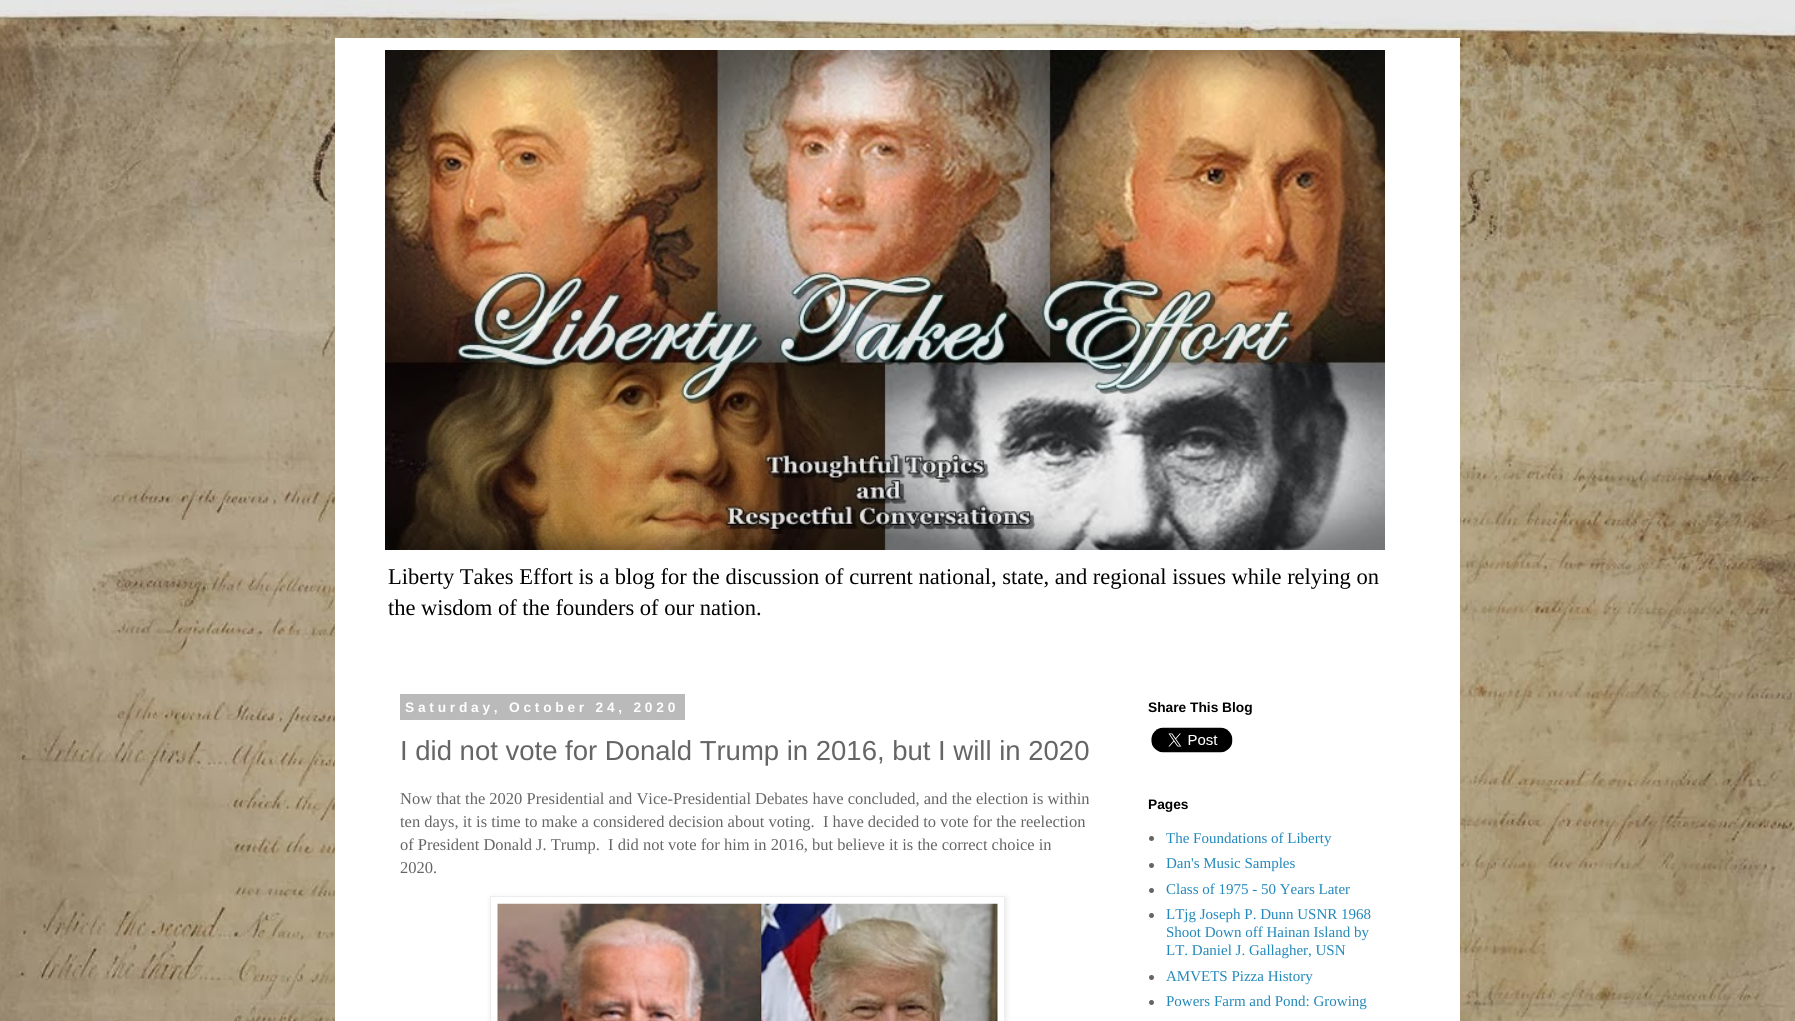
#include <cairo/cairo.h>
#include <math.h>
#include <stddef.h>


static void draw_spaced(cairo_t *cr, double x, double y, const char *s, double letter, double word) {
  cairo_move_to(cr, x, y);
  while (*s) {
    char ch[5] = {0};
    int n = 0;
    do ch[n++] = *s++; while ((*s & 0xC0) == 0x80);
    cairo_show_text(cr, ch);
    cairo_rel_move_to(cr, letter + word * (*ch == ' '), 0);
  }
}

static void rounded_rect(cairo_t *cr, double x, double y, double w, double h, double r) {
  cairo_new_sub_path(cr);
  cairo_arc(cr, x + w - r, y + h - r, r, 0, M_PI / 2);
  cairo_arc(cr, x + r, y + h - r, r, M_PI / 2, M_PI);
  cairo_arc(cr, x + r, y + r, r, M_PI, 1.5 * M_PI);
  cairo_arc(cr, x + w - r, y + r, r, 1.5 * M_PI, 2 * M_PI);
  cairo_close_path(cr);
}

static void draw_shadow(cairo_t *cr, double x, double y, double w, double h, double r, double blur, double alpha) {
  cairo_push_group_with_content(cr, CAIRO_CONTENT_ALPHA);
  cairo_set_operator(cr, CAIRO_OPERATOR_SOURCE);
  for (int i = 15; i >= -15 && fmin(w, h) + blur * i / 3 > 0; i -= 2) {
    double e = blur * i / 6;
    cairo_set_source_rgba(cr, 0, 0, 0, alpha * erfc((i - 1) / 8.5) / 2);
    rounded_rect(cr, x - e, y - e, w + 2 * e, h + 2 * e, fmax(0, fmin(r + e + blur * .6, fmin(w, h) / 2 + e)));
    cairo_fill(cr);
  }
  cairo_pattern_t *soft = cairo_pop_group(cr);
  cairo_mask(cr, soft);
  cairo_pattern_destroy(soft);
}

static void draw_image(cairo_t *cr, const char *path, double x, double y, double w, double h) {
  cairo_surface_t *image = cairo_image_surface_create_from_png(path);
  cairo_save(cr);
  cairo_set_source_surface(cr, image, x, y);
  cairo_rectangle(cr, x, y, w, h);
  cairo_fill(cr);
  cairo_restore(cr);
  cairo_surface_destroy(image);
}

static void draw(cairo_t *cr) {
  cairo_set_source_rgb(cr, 1, 1, 1);
  cairo_paint(cr);
  draw_image(cr, "images/1.png", 0, 0, 1795, 1021);
  cairo_set_source_rgb(cr, 1, 1, 1);
  cairo_rectangle(cr, 335, 38, 1125, 983);
  cairo_fill(cr);
  draw_image(cr, "images/2.png", 385, 50, 1000, 500);
  cairo_set_source_rgb(cr, 186 / 255.0, 186 / 255.0, 186 / 255.0);
  cairo_rectangle(cr, 400, 694, 285, 26);
  cairo_fill(cr);
  cairo_set_source_rgb(cr, 0, 0, 0);
  draw_shadow(cr, 491, 898, 515, 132, 0, 3, 0.1);
  cairo_set_source_rgb(cr, 1, 1, 1);
  cairo_rectangle(cr, 490.5, 896.5, 514, 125);
  cairo_fill_preserve(cr);
  cairo_set_source_rgb(cr, 237 / 255.0, 237 / 255.0, 237 / 255.0);
  cairo_set_line_width(cr, 1);
  cairo_stroke(cr);
  draw_image(cr, "images/3.png", 497, 903, 501, 118);
  draw_image(cr, "images/4.png", 1151, 727, 82, 26);
  cairo_set_source_rgb(cr, 101 / 255.0, 101 / 255.0, 101 / 255.0);
  cairo_arc(cr, 1151.5, 838.5, 2.5, 0, 2 * M_PI);
  cairo_fill(cr);
  cairo_arc(cr, 1151.5, 865.5, 2.5, 0, 2 * M_PI);
  cairo_fill(cr);
  cairo_arc(cr, 1151.5, 890.5, 2.5, 0, 2 * M_PI);
  cairo_fill(cr);
  cairo_arc(cr, 1151.5, 915.5, 2.5, 0, 2 * M_PI);
  cairo_fill(cr);
  cairo_arc(cr, 1151.5, 977.5, 2.5, 0, 2 * M_PI);
  cairo_fill(cr);
  cairo_arc(cr, 1151.5, 1002.5, 2.5, 0, 2 * M_PI);
  cairo_fill(cr);
  cairo_select_font_face(cr, "Liberation Serif", CAIRO_FONT_SLANT_NORMAL, CAIRO_FONT_WEIGHT_NORMAL);
  cairo_set_font_size(cr, 22.5);
  cairo_set_source_rgb(cr, 0, 0, 0);
  cairo_move_to(cr, 388, 584);
  cairo_show_text(cr, "Liberty Takes Effort is a blog for the discussion of current national, state, and regional issues while relying on");
  cairo_move_to(cr, 388, 615);
  cairo_show_text(cr, "the wisdom of the founders of our nation.");
  cairo_select_font_face(cr, "Liberation Sans", CAIRO_FONT_SLANT_NORMAL, CAIRO_FONT_WEIGHT_BOLD);
  cairo_set_font_size(cr, 13.75);
  cairo_set_source_rgb(cr, 1, 1, 1);
  draw_spaced(cr, 405, 712, "Saturday, October 24, 2020", 3.75, 0);
  cairo_select_font_face(cr, "Liberation Sans", CAIRO_FONT_SLANT_NORMAL, CAIRO_FONT_WEIGHT_NORMAL);
  cairo_set_font_size(cr, 27.5);
  cairo_set_source_rgb(cr, 101 / 255.0, 101 / 255.0, 101 / 255.0);
  cairo_move_to(cr, 400, 760);
  cairo_show_text(cr, "I did not vote for Donald Trump in 2016, but I will in 2020");
  cairo_select_font_face(cr, "Liberation Serif", CAIRO_FONT_SLANT_NORMAL, CAIRO_FONT_WEIGHT_NORMAL);
  cairo_set_font_size(cr, 16.5);
  cairo_move_to(cr, 400, 804);
  cairo_show_text(cr, "Now that the 2020 Presidential and Vice-Presidential Debates have concluded, and the election is within");
  cairo_move_to(cr, 400, 827);
  cairo_show_text(cr, "ten days, it is time to make a considered decision about voting.  I have decided to vote for the reelection");
  cairo_move_to(cr, 400, 850);
  cairo_show_text(cr, "of President Donald J. Trump.  I did not vote for him in 2016, but believe it is the correct choice in");
  cairo_move_to(cr, 400, 873);
  cairo_show_text(cr, "2020.");
  cairo_select_font_face(cr, "Liberation Sans", CAIRO_FONT_SLANT_NORMAL, CAIRO_FONT_WEIGHT_BOLD);
  cairo_set_font_size(cr, 13.75);
  cairo_set_source_rgb(cr, 0, 0, 0);
  cairo_move_to(cr, 1148, 712);
  cairo_show_text(cr, "Share This Blog");
  cairo_move_to(cr, 1148, 809);
  cairo_show_text(cr, "Pages");
  cairo_select_font_face(cr, "Liberation Serif", CAIRO_FONT_SLANT_NORMAL, CAIRO_FONT_WEIGHT_NORMAL);
  cairo_set_font_size(cr, 15);
  cairo_set_source_rgb(cr, 34 / 255.0, 136 / 255.0, 187 / 255.0);
  cairo_move_to(cr, 1166, 843);
  cairo_show_text(cr, "The Foundations of Liberty");
  cairo_move_to(cr, 1166, 868);
  cairo_show_text(cr, "Dan's Music Samples");
  cairo_move_to(cr, 1166, 894);
  cairo_show_text(cr, "Class of 1975 - 50 Years Later");
  cairo_move_to(cr, 1166, 919);
  cairo_show_text(cr, "LTjg Joseph P. Dunn USNR 1968");
  cairo_move_to(cr, 1166, 937);
  cairo_show_text(cr, "Shoot Down off Hainan Island by");
  cairo_move_to(cr, 1166, 955);
  cairo_show_text(cr, "LT. Daniel J. Gallagher, USN");
  cairo_move_to(cr, 1166, 981);
  cairo_show_text(cr, "AMVETS Pizza History");
  cairo_move_to(cr, 1166, 1006);
  cairo_show_text(cr, "Powers Farm and Pond: Growing");
}

int main(void) {
  cairo_surface_t *surface = cairo_image_surface_create(CAIRO_FORMAT_RGB24, 1795, 1021);
  cairo_t *cr = cairo_create(surface);
  cairo_font_options_t *options = cairo_font_options_create();
  cairo_font_options_set_hint_metrics(options, CAIRO_HINT_METRICS_OFF);
  cairo_font_options_set_hint_style(options, CAIRO_HINT_STYLE_NONE);
  cairo_set_font_options(cr, options);
  cairo_set_miter_limit(cr, 4);
  draw(cr);
  cairo_surface_write_to_png(surface, "out.png");
  cairo_font_options_destroy(options);
  cairo_destroy(cr);
  cairo_surface_destroy(surface);
  return 0;
}
